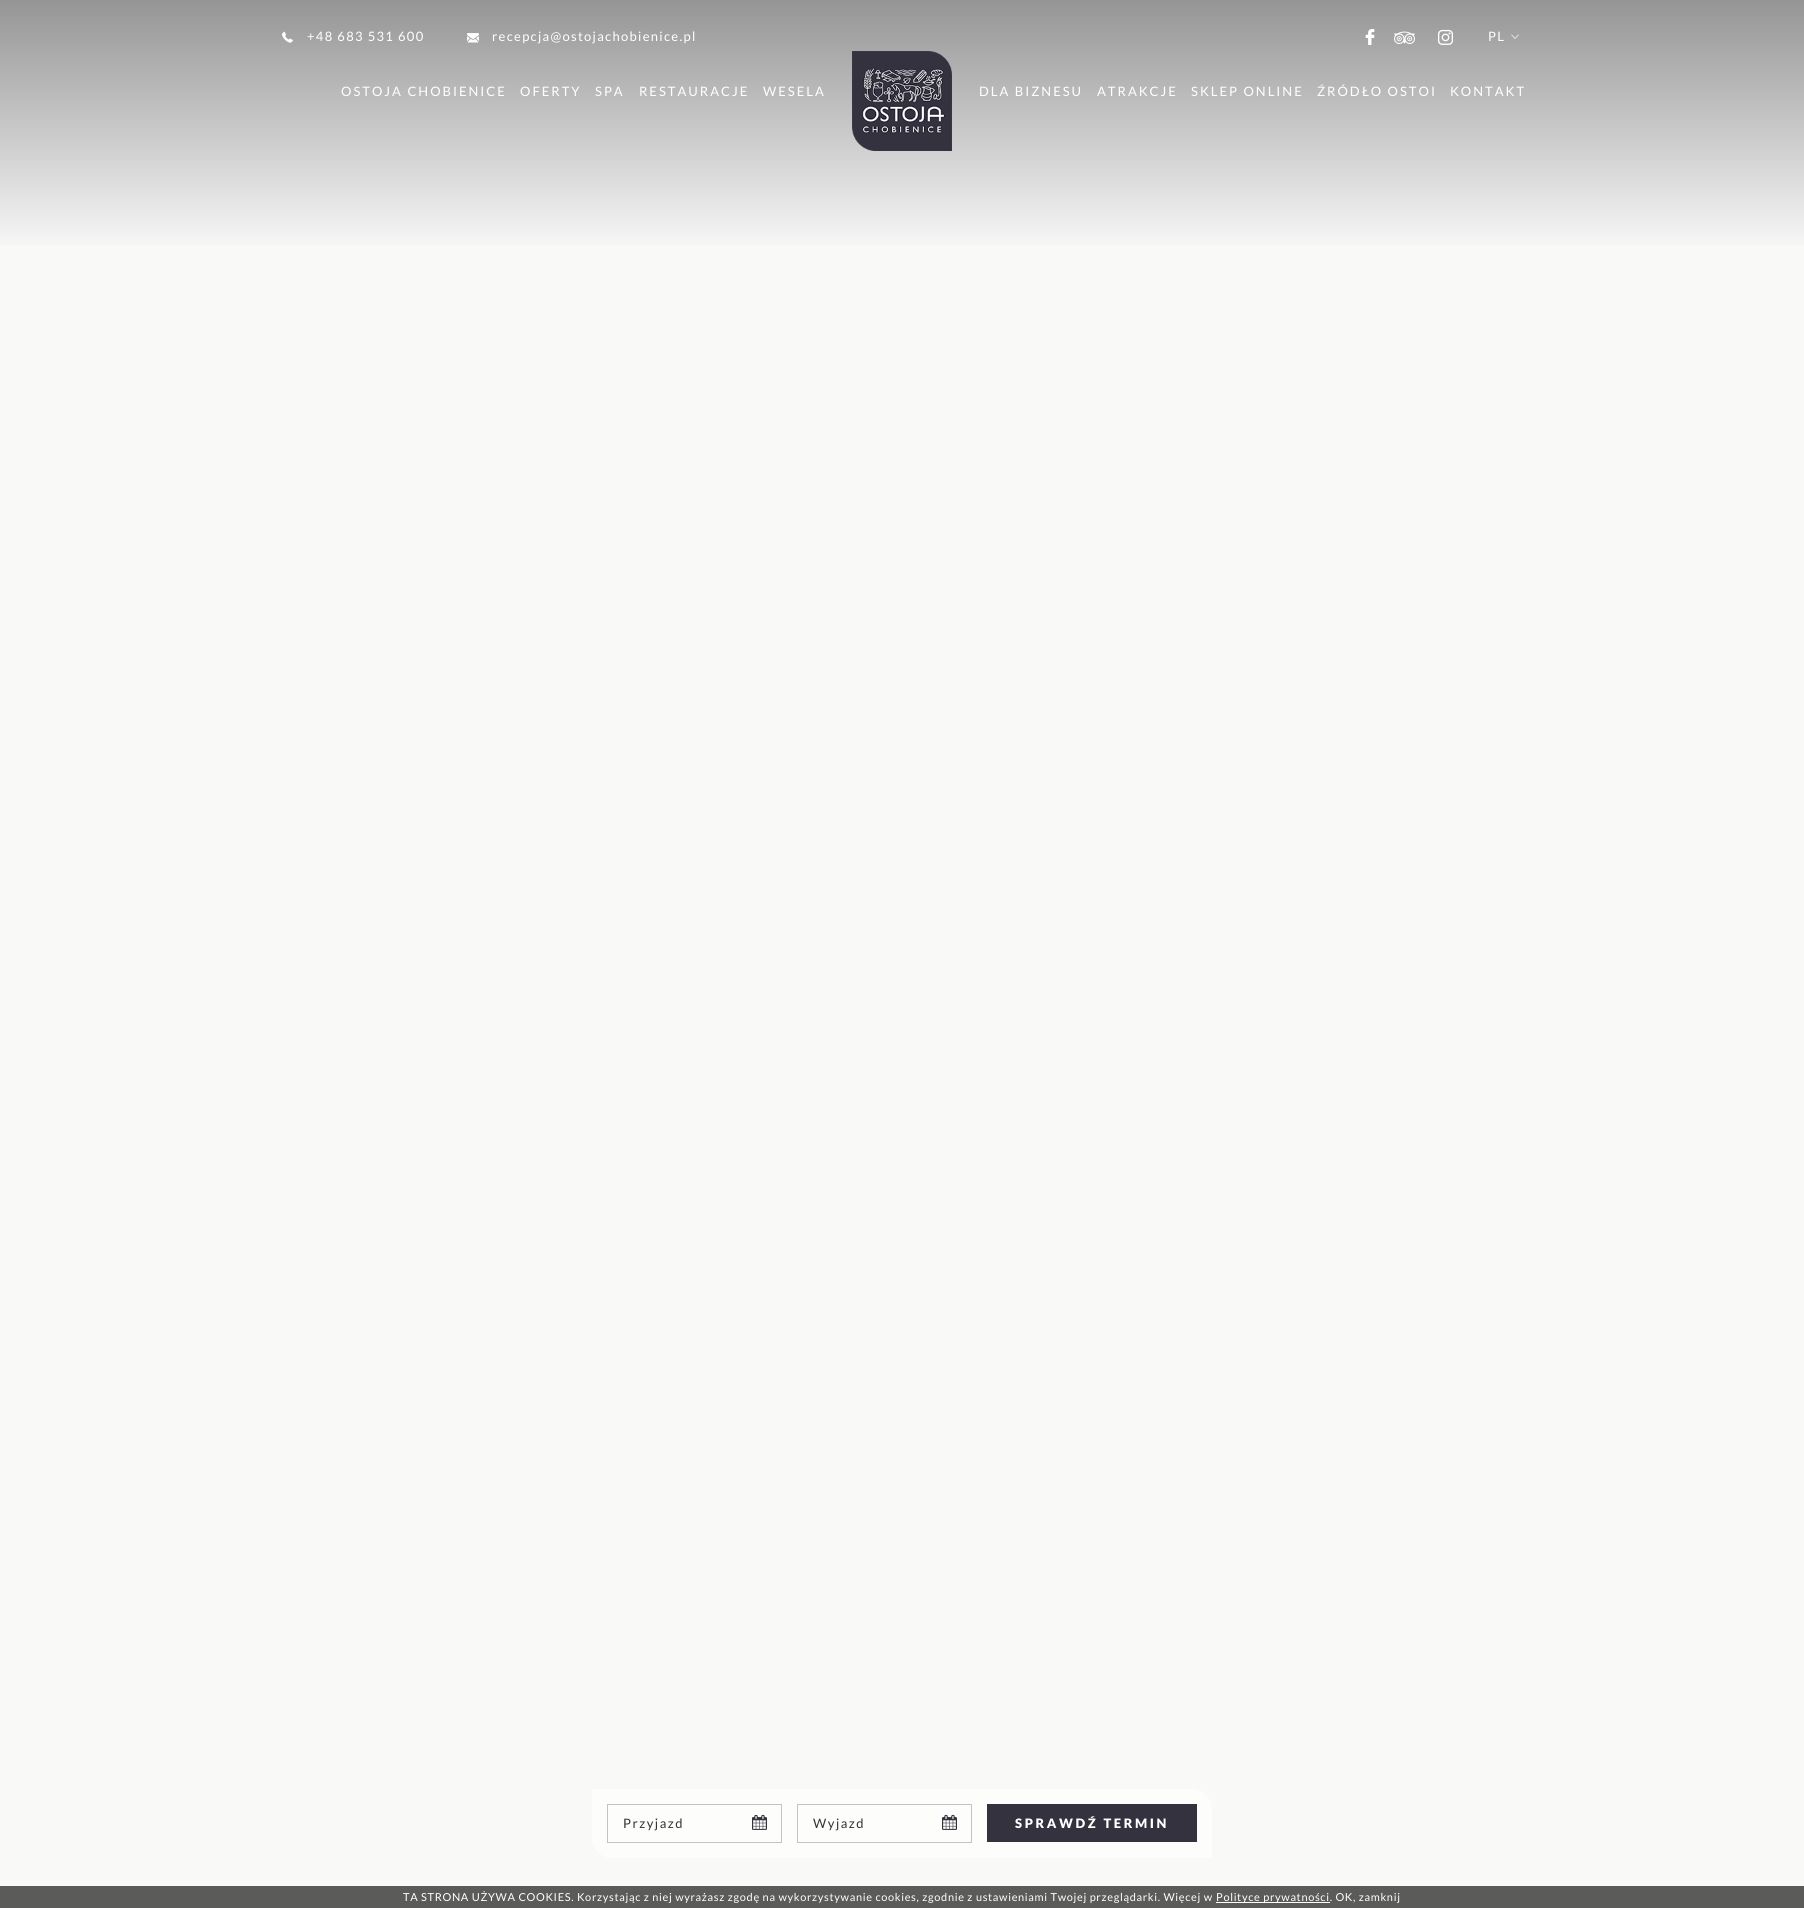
#include <cairo/cairo.h>
#include <math.h>
#include <stddef.h>


static void draw_spaced(cairo_t *cr, double x, double y, const char *s, double letter, double word) {
  cairo_move_to(cr, x, y);
  while (*s) {
    char ch[5] = {0};
    int n = 0;
    do ch[n++] = *s++; while ((*s & 0xC0) == 0x80);
    cairo_show_text(cr, ch);
    cairo_rel_move_to(cr, letter + word * (*ch == ' '), 0);
  }
}

static void draw_image(cairo_t *cr, const char *path, double x, double y, double w, double h) {
  cairo_surface_t *image = cairo_image_surface_create_from_png(path);
  cairo_save(cr);
  cairo_set_source_surface(cr, image, x, y);
  cairo_rectangle(cr, x, y, w, h);
  cairo_fill(cr);
  cairo_restore(cr);
  cairo_surface_destroy(image);
}

static void draw(cairo_t *cr) {
  cairo_pattern_t *gradient;
  cairo_set_source_rgb(cr, 249 / 255.0, 249 / 255.0, 247 / 255.0);
  cairo_paint(cr);
  gradient = cairo_pattern_create_linear(902, 0, 902, 250);
  cairo_pattern_add_color_stop_rgba(gradient, 0, 149 / 255.0, 149 / 255.0, 149 / 255.0, 1);
  cairo_pattern_add_color_stop_rgba(gradient, 1, 248 / 255.0, 248 / 255.0, 248 / 255.0, 1);
  cairo_set_source(cr, gradient);
  cairo_pattern_destroy(gradient);
  cairo_rectangle(cr, 0, 0, 1804, 246);
  cairo_fill(cr);
  draw_image(cr, "images/1.png", 282, 31, 11, 12);
  draw_image(cr, "images/2.png", 467, 33, 12, 10);
  draw_image(cr, "images/3.png", 1365, 29, 10, 16);
  draw_image(cr, "images/4.png", 1394, 31, 21, 13);
  draw_image(cr, "images/5.png", 1438, 29, 15, 16);
  draw_image(cr, "images/6.png", 1511, 34, 8, 5);
  draw_image(cr, "images/7.png", 852, 51, 100, 100);
  cairo_set_source_rgb(cr, 253 / 255.0, 253 / 255.0, 252 / 255.0);
  cairo_new_path(cr);
  cairo_move_to(cr, 592, 1789);
  cairo_line_to(cr, 1192, 1789);
  cairo_curve_to(cr, 1203, 1789, 1212, 1798, 1212, 1809);
  cairo_line_to(cr, 1212, 1858);
  cairo_line_to(cr, 612, 1858);
  cairo_curve_to(cr, 601, 1858, 592, 1849, 592, 1838);
  cairo_close_path(cr);
  cairo_fill(cr);
  cairo_rectangle(cr, 607.5, 1804.5, 174, 38);
  cairo_set_source_rgb(cr, 198 / 255.0, 196 / 255.0, 186 / 255.0);
  cairo_set_line_width(cr, 1);
  cairo_stroke(cr);
  draw_image(cr, "images/8.png", 752, 1814, 15, 16);
  cairo_rectangle(cr, 797.5, 1804.5, 174, 38);
  cairo_stroke(cr);
  draw_image(cr, "images/8.png", 942, 1814, 15, 16);
  cairo_set_source_rgb(cr, 52 / 255.0, 50 / 255.0, 63 / 255.0);
  cairo_rectangle(cr, 987, 1804, 210, 38);
  cairo_fill(cr);
  cairo_set_source_rgb(cr, 91 / 255.0, 91 / 255.0, 90 / 255.0);
  cairo_rectangle(cr, 0, 1886, 1804, 22);
  cairo_fill(cr);
  cairo_set_source_rgb(cr, 1, 1, 1);
  cairo_rectangle(cr, 1216, 1902, 114, 1);
  cairo_fill(cr);
  cairo_select_font_face(cr, "Lato", CAIRO_FONT_SLANT_NORMAL, CAIRO_FONT_WEIGHT_NORMAL);
  cairo_set_font_size(cr, 13);
  draw_spaced(cr, 307, 41, "+48 683 531 600", 1.3, 0);
  draw_spaced(cr, 492, 41, "recepcja@ostojachobienice.pl", 1.3, 0);
  draw_spaced(cr, 1488, 41, "PL", 1.3, 0);
  draw_spaced(cr, 341, 96, "OSTOJA CHOBIENICE", 2, 0);
  draw_spaced(cr, 520, 96, "OFERTY", 2, 0);
  draw_spaced(cr, 595, 96, "SPA", 2, 0);
  draw_spaced(cr, 639, 96, "RESTAURACJE", 2, 0);
  draw_spaced(cr, 763, 96, "WESELA", 2, 0);
  draw_spaced(cr, 979, 96, "DLA BIZNESU", 2, 0);
  draw_spaced(cr, 1097, 96, "ATRAKCJE", 2, 0);
  draw_spaced(cr, 1191, 96, "SKLEP ONLINE", 2, 0);
  draw_spaced(cr, 1317, 96, "ŹRÓDŁO OSTOI", 2, 0);
  draw_spaced(cr, 1450, 96, "KONTAKT", 2, 0);
  cairo_set_source_rgb(cr, 51 / 255.0, 51 / 255.0, 51 / 255.0);
  draw_spaced(cr, 623, 1828, "Przyjazd", 1.5, 0);
  draw_spaced(cr, 813, 1828, "Wyjazd", 1.5, 0);
  cairo_select_font_face(cr, "Lato Black", CAIRO_FONT_SLANT_NORMAL, CAIRO_FONT_WEIGHT_NORMAL);
  cairo_set_source_rgb(cr, 1, 1, 1);
  draw_spaced(cr, 1015, 1828, "SPRAWDŹ TERMIN", 2.6, 0);
  cairo_select_font_face(cr, "Lato", CAIRO_FONT_SLANT_NORMAL, CAIRO_FONT_WEIGHT_NORMAL);
  cairo_set_font_size(cr, 11);
  draw_spaced(cr, 403, 1901, "TA STRONA UŻYWA COOKIES. Korzystając z niej wyrażasz zgodę na wykorzystywanie cookies, zgodnie z ustawieniami Twojej przeglądarki. Więcej w", 0.66, 0);
  draw_spaced(cr, 1216, 1901, "Polityce prywatności. OK, zamknij", 0.66, 0);
}

int main(void) {
  cairo_surface_t *surface = cairo_image_surface_create(CAIRO_FORMAT_RGB24, 1804, 1908);
  cairo_t *cr = cairo_create(surface);
  cairo_font_options_t *options = cairo_font_options_create();
  cairo_font_options_set_hint_metrics(options, CAIRO_HINT_METRICS_OFF);
  cairo_font_options_set_hint_style(options, CAIRO_HINT_STYLE_NONE);
  cairo_set_font_options(cr, options);
  cairo_set_miter_limit(cr, 4);
  draw(cr);
  cairo_surface_write_to_png(surface, "out.png");
  cairo_font_options_destroy(options);
  cairo_destroy(cr);
  cairo_surface_destroy(surface);
  return 0;
}
